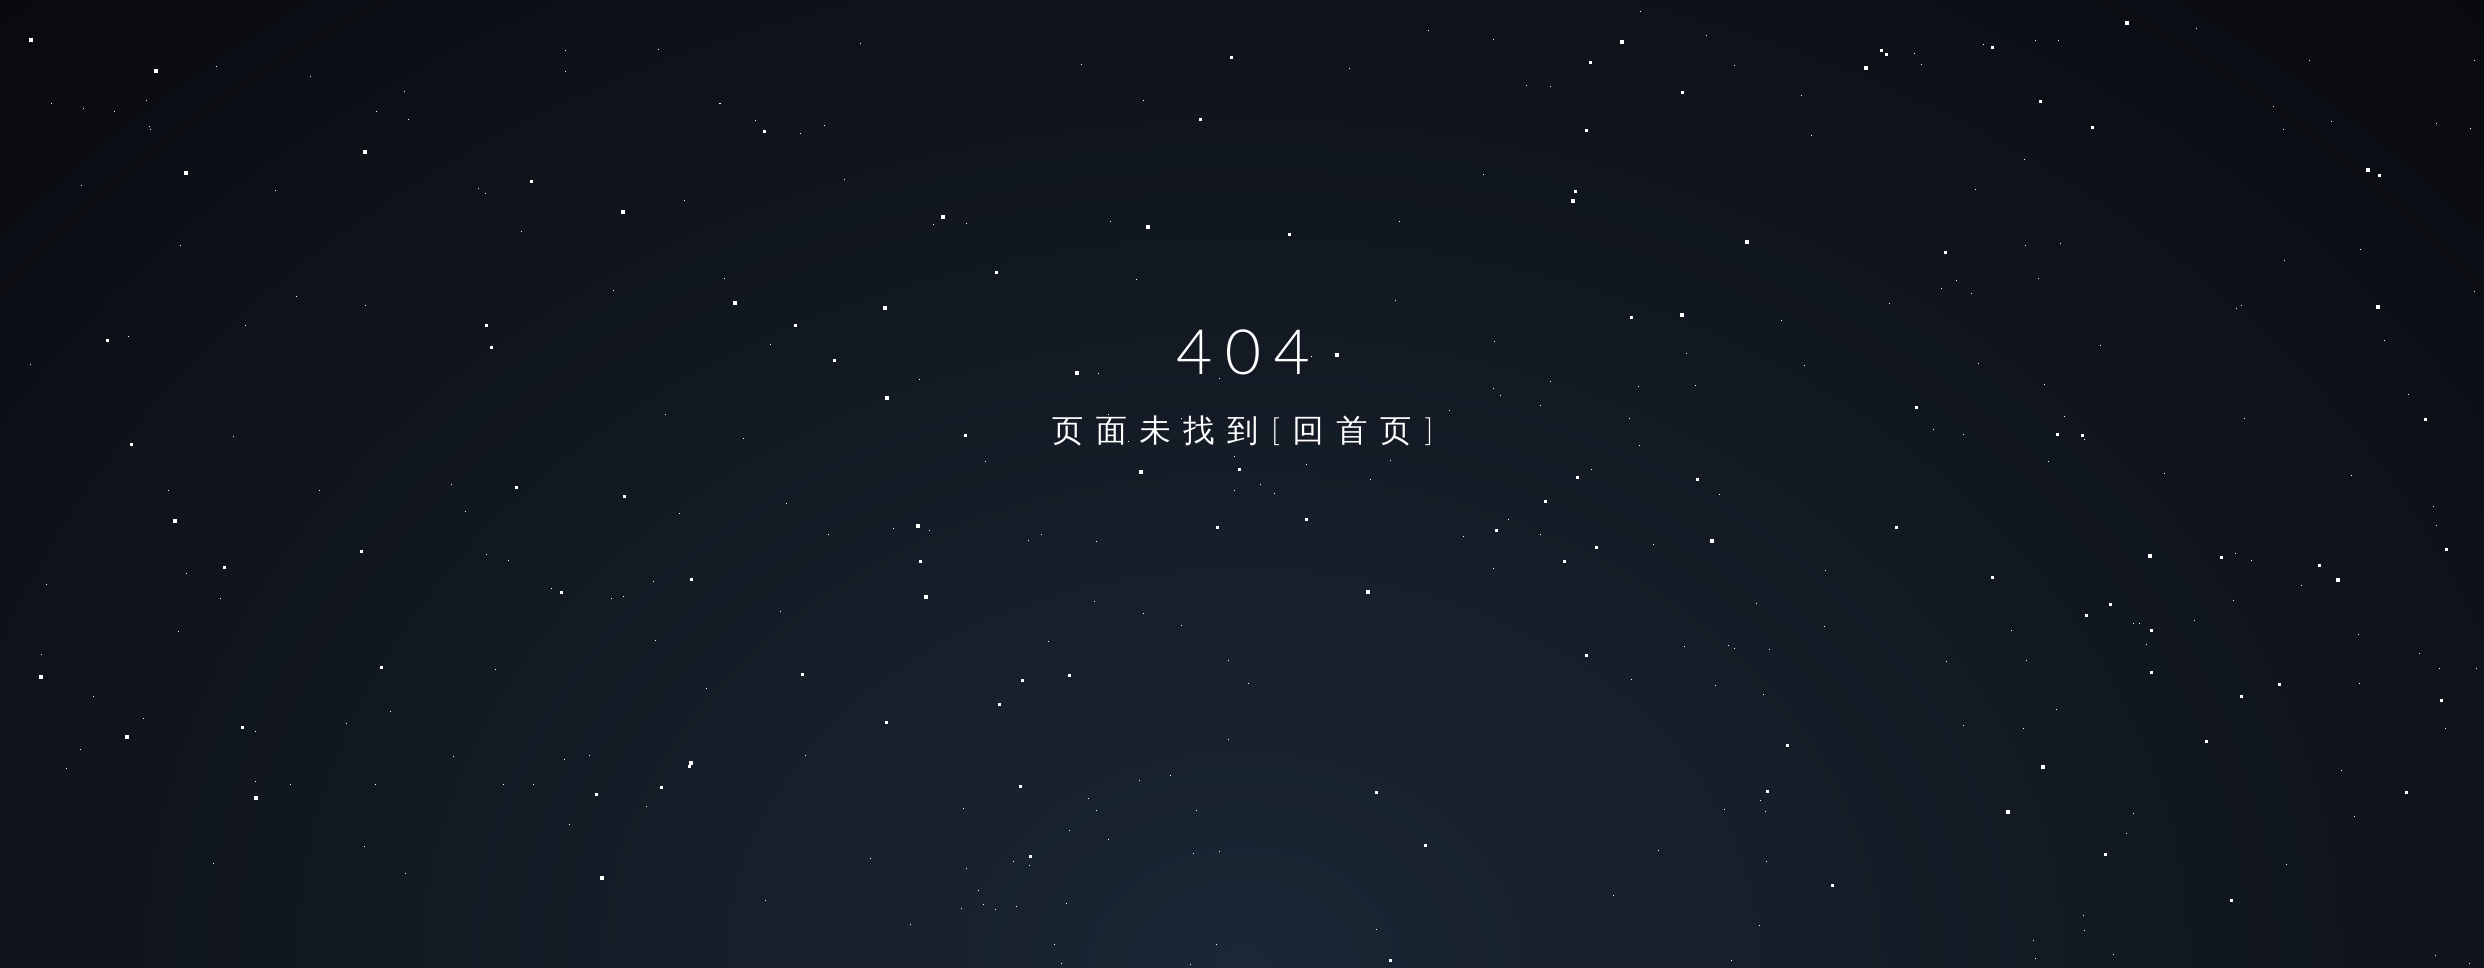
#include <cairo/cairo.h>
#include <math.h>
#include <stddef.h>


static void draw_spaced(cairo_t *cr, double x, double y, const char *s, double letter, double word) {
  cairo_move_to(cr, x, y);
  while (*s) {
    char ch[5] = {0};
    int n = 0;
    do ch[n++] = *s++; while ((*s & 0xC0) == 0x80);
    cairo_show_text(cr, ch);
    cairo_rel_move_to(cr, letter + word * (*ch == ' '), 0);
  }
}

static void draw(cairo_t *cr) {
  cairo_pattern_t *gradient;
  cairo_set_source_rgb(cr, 1, 1, 1);
  cairo_paint(cr);
  gradient = cairo_pattern_create_radial(0, 0, 0, 0, 0, 1);
  cairo_pattern_set_matrix(gradient, &(cairo_matrix_t){1.0 / 1757, 0, 0, 1.0 / 1370, -1.0 * 1243 / 1757, -1.0 * 969 / 1370});
  cairo_pattern_add_color_stop_rgba(gradient, 0, 27 / 255.0, 39 / 255.0, 53 / 255.0, 1);
  cairo_pattern_add_color_stop_rgba(gradient, 1, 9 / 255.0, 10 / 255.0, 15 / 255.0, 1);
  cairo_set_source(cr, gradient);
  cairo_pattern_destroy(gradient);
  cairo_rectangle(cr, 0, 0, 2484, 968);
  cairo_fill(cr);
  cairo_set_source_rgb(cr, 1, 1, 1);
  cairo_rectangle(cr, 1139, 780, 1, 1);
  cairo_fill(cr);
  cairo_rectangle(cr, 233, 436, 1, 1);
  cairo_fill(cr);
  cairo_rectangle(cr, 2035, 958, 1, 1);
  cairo_fill(cr);
  cairo_rectangle(cr, 2084, 439, 1, 1);
  cairo_fill(cr);
  cairo_rectangle(cr, 2331, 121, 1, 1);
  cairo_fill(cr);
  cairo_rectangle(cr, 893, 528, 1, 1);
  cairo_fill(cr);
  cairo_rectangle(cr, 1216, 944, 1, 1);
  cairo_fill(cr);
  cairo_rectangle(cr, 963, 808, 1, 1);
  cairo_fill(cr);
  cairo_rectangle(cr, 1028, 540, 1, 1);
  cairo_fill(cr);
  cairo_rectangle(cr, 2251, 560, 1, 1);
  cairo_fill(cr);
  cairo_rectangle(cr, 978, 890, 1, 1);
  cairo_fill(cr);
  cairo_rectangle(cr, 1811, 135, 1, 1);
  cairo_fill(cr);
  cairo_rectangle(cr, 376, 111, 1, 1);
  cairo_fill(cr);
  cairo_rectangle(cr, 1629, 418, 1, 1);
  cairo_fill(cr);
  cairo_rectangle(cr, 2064, 416, 1, 1);
  cairo_fill(cr);
  cairo_rectangle(cr, 508, 560, 1, 1);
  cairo_fill(cr);
  cairo_rectangle(cr, 2236, 308, 1, 1);
  cairo_fill(cr);
  cairo_rectangle(cr, 1983, 44, 1, 1);
  cairo_fill(cr);
  cairo_rectangle(cr, 41, 654, 1, 1);
  cairo_fill(cr);
  cairo_rectangle(cr, 1306, 464, 1, 1);
  cairo_fill(cr);
  cairo_rectangle(cr, 2435, 955, 1, 1);
  cairo_fill(cr);
  cairo_rectangle(cr, 724, 278, 1, 1);
  cairo_fill(cr);
  cairo_rectangle(cr, 2011, 630, 1, 1);
  cairo_fill(cr);
  cairo_rectangle(cr, 1804, 365, 1, 1);
  cairo_fill(cr);
  cairo_rectangle(cr, 1143, 100, 1, 1);
  cairo_fill(cr);
  cairo_rectangle(cr, 1825, 570, 1, 1);
  cairo_fill(cr);
  cairo_rectangle(cr, 1631, 679, 1, 1);
  cairo_fill(cr);
  cairo_rectangle(cr, 2358, 634, 1, 1);
  cairo_fill(cr);
  cairo_rectangle(cr, 1081, 64, 1, 1);
  cairo_fill(cr);
  cairo_rectangle(cr, 1234, 490, 1, 1);
  cairo_fill(cr);
  cairo_rectangle(cr, 1228, 660, 1, 1);
  cairo_fill(cr);
  cairo_rectangle(cr, 1613, 895, 1, 1);
  cairo_fill(cr);
  cairo_rectangle(cr, 405, 873, 1, 1);
  cairo_fill(cr);
  cairo_rectangle(cr, 1963, 725, 1, 1);
  cairo_fill(cr);
  cairo_rectangle(cr, 255, 781, 1, 1);
  cairo_fill(cr);
  cairo_rectangle(cr, 1463, 536, 1, 1);
  cairo_fill(cr);
  cairo_rectangle(cr, 1274, 493, 1, 1);
  cairo_fill(cr);
  cairo_rectangle(cr, 149, 126, 1, 1);
  cairo_fill(cr);
  cairo_rectangle(cr, 2469, 963, 1, 1);
  cairo_fill(cr);
  cairo_rectangle(cr, 1181, 625, 1, 1);
  cairo_fill(cr);
  cairo_rectangle(cr, 755, 120, 1, 1);
  cairo_fill(cr);
  cairo_rectangle(cr, 346, 723, 1, 1);
  cairo_fill(cr);
  cairo_rectangle(cr, 485, 193, 1, 1);
  cairo_fill(cr);
  cairo_rectangle(cr, 2139, 623, 1, 1);
  cairo_fill(cr);
  cairo_rectangle(cr, 2470, 128, 1, 1);
  cairo_fill(cr);
  cairo_rectangle(cr, 684, 200, 1, 1);
  cairo_fill(cr);
  cairo_rectangle(cr, 2360, 249, 1, 1);
  cairo_fill(cr);
  cairo_rectangle(cr, 1719, 494, 1, 1);
  cairo_fill(cr);
  cairo_rectangle(cr, 1731, 960, 1, 1);
  cairo_fill(cr);
  cairo_rectangle(cr, 1228, 739, 1, 1);
  cairo_fill(cr);
  cairo_rectangle(cr, 2100, 345, 1, 1);
  cairo_fill(cr);
  cairo_rectangle(cr, 2113, 954, 1, 1);
  cairo_fill(cr);
  cairo_rectangle(cr, 1914, 53, 1, 1);
  cairo_fill(cr);
  cairo_rectangle(cr, 870, 858, 1, 1);
  cairo_fill(cr);
  cairo_rectangle(cr, 1098, 373, 1, 1);
  cairo_fill(cr);
  cairo_rectangle(cr, 465, 511, 1, 1);
  cairo_fill(cr);
  cairo_rectangle(cr, 2273, 106, 1, 1);
  cairo_fill(cr);
  cairo_rectangle(cr, 565, 71, 1, 1);
  cairo_fill(cr);
  cairo_rectangle(cr, 2283, 129, 1, 1);
  cairo_fill(cr);
  cairo_rectangle(cr, 2474, 60, 1, 1);
  cairo_fill(cr);
  cairo_rectangle(cr, 828, 534, 1, 1);
  cairo_fill(cr);
  cairo_rectangle(cr, 2235, 553, 1, 1);
  cairo_fill(cr);
  cairo_rectangle(cr, 564, 759, 1, 1);
  cairo_fill(cr);
  cairo_rectangle(cr, 495, 669, 1, 1);
  cairo_fill(cr);
  cairo_rectangle(cr, 521, 231, 1, 1);
  cairo_fill(cr);
  cairo_rectangle(cr, 2056, 709, 1, 1);
  cairo_fill(cr);
  cairo_rectangle(cr, 1096, 810, 1, 1);
  cairo_fill(cr);
  cairo_rectangle(cr, 2474, 291, 1, 1);
  cairo_fill(cr);
  cairo_rectangle(cr, 1715, 685, 1, 1);
  cairo_fill(cr);
  cairo_rectangle(cr, 2241, 305, 1, 1);
  cairo_fill(cr);
  cairo_rectangle(cr, 1061, 963, 1, 1);
  cairo_fill(cr);
  cairo_rectangle(cr, 2023, 728, 1, 1);
  cairo_fill(cr);
  cairo_rectangle(cr, 1260, 484, 1, 1);
  cairo_fill(cr);
  cairo_rectangle(cr, 679, 513, 1, 1);
  cairo_fill(cr);
  cairo_rectangle(cr, 1170, 775, 1, 1);
  cairo_fill(cr);
  cairo_rectangle(cr, 2133, 623, 1, 1);
  cairo_fill(cr);
  cairo_rectangle(cr, 1781, 320, 1, 1);
  cairo_fill(cr);
  cairo_rectangle(cr, 143, 718, 1, 1);
  cairo_fill(cr);
  cairo_rectangle(cr, 2359, 683, 1, 1);
  cairo_fill(cr);
  cairo_rectangle(cr, 589, 755, 1, 1);
  cairo_fill(cr);
  cairo_rectangle(cr, 2284, 260, 1, 1);
  cairo_fill(cr);
  cairo_rectangle(cr, 30, 364, 1, 1);
  cairo_fill(cr);
  cairo_rectangle(cr, 451, 484, 1, 1);
  cairo_fill(cr);
  cairo_rectangle(cr, 1128, 441, 1, 1);
  cairo_fill(cr);
  cairo_rectangle(cr, 390, 711, 1, 1);
  cairo_fill(cr);
  cairo_rectangle(cr, 2433, 506, 1, 1);
  cairo_fill(cr);
  cairo_rectangle(cr, 1048, 641, 1, 1);
  cairo_fill(cr);
  cairo_rectangle(cr, 290, 784, 1, 1);
  cairo_fill(cr);
  cairo_rectangle(cr, 319, 490, 1, 1);
  cairo_fill(cr);
  cairo_rectangle(cr, 364, 846, 1, 1);
  cairo_fill(cr);
  cairo_rectangle(cr, 2445, 728, 1, 1);
  cairo_fill(cr);
  cairo_rectangle(cr, 365, 305, 1, 1);
  cairo_fill(cr);
  cairo_rectangle(cr, 1640, 11, 1, 1);
  cairo_fill(cr);
  cairo_rectangle(cr, 569, 824, 1, 1);
  cairo_fill(cr);
  cairo_rectangle(cr, 81, 185, 1, 1);
  cairo_fill(cr);
  cairo_rectangle(cr, 1088, 798, 1, 1);
  cairo_fill(cr);
  cairo_rectangle(cr, 1136, 279, 1, 1);
  cairo_fill(cr);
  cairo_rectangle(cr, 1094, 601, 1, 1);
  cairo_fill(cr);
  cairo_rectangle(cr, 1978, 363, 1, 1);
  cairo_fill(cr);
  cairo_rectangle(cr, 128, 336, 1, 1);
  cairo_fill(cr);
  cairo_rectangle(cr, 1349, 68, 1, 1);
  cairo_fill(cr);
  cairo_rectangle(cr, 408, 119, 1, 1);
  cairo_fill(cr);
  cairo_rectangle(cr, 1493, 39, 1, 1);
  cairo_fill(cr);
  cairo_rectangle(cr, 1493, 568, 1, 1);
  cairo_fill(cr);
  cairo_rectangle(cr, 178, 631, 1, 1);
  cairo_fill(cr);
  cairo_rectangle(cr, 213, 863, 1, 1);
  cairo_fill(cr);
  cairo_rectangle(cr, 910, 924, 1, 1);
  cairo_fill(cr);
  cairo_rectangle(cr, 2146, 644, 1, 1);
  cairo_fill(cr);
  cairo_rectangle(cr, 2436, 525, 1, 1);
  cairo_fill(cr);
  cairo_rectangle(cr, 565, 50, 1, 1);
  cairo_fill(cr);
  cairo_rectangle(cr, 2058, 40, 1, 1);
  cairo_fill(cr);
  cairo_rectangle(cr, 2196, 28, 1, 1);
  cairo_fill(cr);
  cairo_rectangle(cr, 375, 784, 1, 1);
  cairo_fill(cr);
  cairo_rectangle(cr, 1756, 603, 1, 1);
  cairo_fill(cr);
  cairo_rectangle(cr, 478, 188, 1, 1);
  cairo_fill(cr);
  cairo_rectangle(cr, 646, 806, 1, 1);
  cairo_fill(cr);
  cairo_rectangle(cr, 245, 325, 1, 1);
  cairo_fill(cr);
  cairo_rectangle(cr, 1143, 613, 1, 1);
  cairo_fill(cr);
  cairo_rectangle(cr, 1069, 830, 1, 1);
  cairo_fill(cr);
  cairo_rectangle(cr, 1540, 534, 1, 1);
  cairo_fill(cr);
  cairo_rectangle(cr, 1724, 809, 1, 1);
  cairo_fill(cr);
  cairo_rectangle(cr, 1311, 356, 1, 1);
  cairo_fill(cr);
  cairo_rectangle(cr, 1508, 519, 1, 1);
  cairo_fill(cr);
  cairo_rectangle(cr, 2038, 278, 1, 1);
  cairo_fill(cr);
  cairo_rectangle(cr, 453, 756, 1, 1);
  cairo_fill(cr);
  cairo_rectangle(cr, 780, 611, 1, 1);
  cairo_fill(cr);
  cairo_rectangle(cr, 2408, 394, 1, 1);
  cairo_fill(cr);
  cairo_rectangle(cr, 786, 503, 1, 1);
  cairo_fill(cr);
  cairo_rectangle(cr, 929, 530, 1, 1);
  cairo_fill(cr);
  cairo_rectangle(cr, 1759, 925, 1, 1);
  cairo_fill(cr);
  cairo_rectangle(cr, 2309, 60, 1, 1);
  cairo_fill(cr);
  cairo_rectangle(cr, 2351, 475, 1, 1);
  cairo_fill(cr);
  cairo_rectangle(cr, 658, 49, 1, 1);
  cairo_fill(cr);
  cairo_rectangle(cr, 146, 100, 1, 1);
  cairo_fill(cr);
  cairo_rectangle(cr, 1763, 694, 1, 1);
  cairo_fill(cr);
  cairo_rectangle(cr, 2341, 770, 1, 1);
  cairo_fill(cr);
  cairo_rectangle(cr, 1376, 929, 1, 1);
  cairo_fill(cr);
  cairo_rectangle(cr, 1193, 853, 1, 1);
  cairo_fill(cr);
  cairo_rectangle(cr, 961, 908, 1, 1);
  cairo_fill(cr);
  cairo_rectangle(cr, 1639, 445, 1, 1);
  cairo_fill(cr);
  cairo_rectangle(cr, 765, 900, 1, 1);
  cairo_fill(cr);
  cairo_rectangle(cr, 150, 129, 1, 1);
  cairo_fill(cr);
  cairo_rectangle(cr, 1054, 944, 1, 1);
  cairo_fill(cr);
  cairo_rectangle(cr, 220, 598, 1, 1);
  cairo_fill(cr);
  cairo_rectangle(cr, 1766, 861, 1, 1);
  cairo_fill(cr);
  cairo_rectangle(cr, 486, 554, 1, 1);
  cairo_fill(cr);
  cairo_rectangle(cr, 983, 904, 1, 1);
  cairo_fill(cr);
  cairo_rectangle(cr, 2476, 668, 1, 1);
  cairo_fill(cr);
  cairo_rectangle(cr, 1975, 189, 1, 1);
  cairo_fill(cr);
  cairo_rectangle(cr, 824, 125, 1, 1);
  cairo_fill(cr);
  cairo_rectangle(cr, 1219, 378, 1, 1);
  cairo_fill(cr);
  cairo_rectangle(cr, 2084, 930, 1, 1);
  cairo_fill(cr);
  cairo_rectangle(cr, 1370, 479, 1, 1);
  cairo_fill(cr);
  cairo_rectangle(cr, 2419, 653, 1, 1);
  cairo_fill(cr);
  cairo_rectangle(cr, 1591, 469, 1, 1);
  cairo_fill(cr);
  cairo_rectangle(cr, 46, 584, 1, 1);
  cairo_fill(cr);
  cairo_rectangle(cr, 2025, 245, 1, 1);
  cairo_fill(cr);
  cairo_rectangle(cr, 1889, 303, 1, 1);
  cairo_fill(cr);
  cairo_rectangle(cr, 1428, 30, 1, 1);
  cairo_fill(cr);
  cairo_rectangle(cr, 1234, 456, 1, 1);
  cairo_fill(cr);
  cairo_rectangle(cr, 2033, 940, 1, 1);
  cairo_fill(cr);
  cairo_rectangle(cr, 2439, 668, 1, 1);
  cairo_fill(cr);
  cairo_rectangle(cr, 1108, 414, 1, 1);
  cairo_fill(cr);
  cairo_rectangle(cr, 51, 103, 1, 1);
  cairo_fill(cr);
  cairo_rectangle(cr, 1921, 64, 1, 1);
  cairo_fill(cr);
  cairo_rectangle(cr, 1971, 293, 1, 1);
  cairo_fill(cr);
  cairo_rectangle(cr, 1824, 626, 1, 1);
  cairo_fill(cr);
  cairo_rectangle(cr, 919, 379, 1, 1);
  cairo_fill(cr);
  cairo_rectangle(cr, 551, 588, 1, 1);
  cairo_fill(cr);
  cairo_rectangle(cr, 719, 103, 2, 1);
  cairo_fill(cr);
  cairo_rectangle(cr, 80, 749, 1, 1);
  cairo_fill(cr);
  cairo_rectangle(cr, 1765, 811, 1, 1);
  cairo_fill(cr);
  cairo_rectangle(cr, 1956, 280, 1, 1);
  cairo_fill(cr);
  cairo_rectangle(cr, 985, 461, 1, 1);
  cairo_fill(cr);
  cairo_rectangle(cr, 1248, 683, 1, 1);
  cairo_fill(cr);
  cairo_rectangle(cr, 1695, 385, 1, 1);
  cairo_fill(cr);
  cairo_rectangle(cr, 2194, 620, 1, 1);
  cairo_fill(cr);
  cairo_rectangle(cr, 1449, 410, 1, 1);
  cairo_fill(cr);
  cairo_rectangle(cr, 2035, 40, 1, 1);
  cairo_fill(cr);
  cairo_rectangle(cr, 1941, 288, 1, 1);
  cairo_fill(cr);
  cairo_rectangle(cr, 2233, 600, 1, 1);
  cairo_fill(cr);
  cairo_rectangle(cr, 1734, 65, 1, 1);
  cairo_fill(cr);
  cairo_rectangle(cr, 2286, 864, 1, 1);
  cairo_fill(cr);
  cairo_rectangle(cr, 1016, 906, 1, 1);
  cairo_fill(cr);
  cairo_rectangle(cr, 770, 344, 1, 1);
  cairo_fill(cr);
  cairo_rectangle(cr, 1550, 381, 1, 1);
  cairo_fill(cr);
  cairo_rectangle(cr, 186, 573, 1, 1);
  cairo_fill(cr);
  cairo_rectangle(cr, 995, 909, 1, 1);
  cairo_fill(cr);
  cairo_rectangle(cr, 966, 223, 1, 1);
  cairo_fill(cr);
  cairo_rectangle(cr, 2060, 243, 1, 1);
  cairo_fill(cr);
  cairo_rectangle(cr, 1540, 405, 1, 1);
  cairo_fill(cr);
  cairo_rectangle(cr, 611, 598, 1, 1);
  cairo_fill(cr);
  cairo_rectangle(cr, 1219, 851, 1, 1);
  cairo_fill(cr);
  cairo_rectangle(cr, 706, 688, 1, 1);
  cairo_fill(cr);
  cairo_rectangle(cr, 1494, 341, 1, 1);
  cairo_fill(cr);
  cairo_rectangle(cr, 1728, 645, 1, 1);
  cairo_fill(cr);
  cairo_rectangle(cr, 2164, 473, 1, 1);
  cairo_fill(cr);
  cairo_rectangle(cr, 1390, 460, 1, 1);
  cairo_fill(cr);
  cairo_rectangle(cr, 1196, 810, 1, 1);
  cairo_fill(cr);
  cairo_rectangle(cr, 2436, 123, 1, 1);
  cairo_fill(cr);
  cairo_rectangle(cr, 533, 784, 1, 1);
  cairo_fill(cr);
  cairo_rectangle(cr, 1638, 386, 1, 1);
  cairo_fill(cr);
  cairo_rectangle(cr, 2354, 816, 1, 1);
  cairo_fill(cr);
  cairo_rectangle(cr, 275, 190, 1, 1);
  cairo_fill(cr);
  cairo_rectangle(cr, 83, 108, 1, 1);
  cairo_fill(cr);
  cairo_rectangle(cr, 1706, 35, 1, 1);
  cairo_fill(cr);
  cairo_rectangle(cr, 296, 296, 1, 1);
  cairo_fill(cr);
  cairo_rectangle(cr, 1399, 221, 1, 1);
  cairo_fill(cr);
  cairo_rectangle(cr, 1181, 418, 1, 1);
  cairo_fill(cr);
  cairo_rectangle(cr, 2026, 660, 1, 1);
  cairo_fill(cr);
  cairo_rectangle(cr, 180, 245, 1, 1);
  cairo_fill(cr);
  cairo_rectangle(cr, 2133, 813, 1, 1);
  cairo_fill(cr);
  cairo_rectangle(cr, 743, 438, 1, 1);
  cairo_fill(cr);
  cairo_rectangle(cr, 1946, 661, 1, 1);
  cairo_fill(cr);
  cairo_rectangle(cr, 168, 490, 1, 1);
  cairo_fill(cr);
  cairo_rectangle(cr, 655, 640, 1, 1);
  cairo_fill(cr);
  cairo_rectangle(cr, 255, 731, 1, 1);
  cairo_fill(cr);
  cairo_rectangle(cr, 1801, 95, 1, 1);
  cairo_fill(cr);
  cairo_rectangle(cr, 966, 868, 1, 1);
  cairo_fill(cr);
  cairo_rectangle(cr, 1108, 839, 1, 1);
  cairo_fill(cr);
  cairo_rectangle(cr, 2048, 461, 1, 1);
  cairo_fill(cr);
  cairo_rectangle(cr, 310, 76, 1, 1);
  cairo_fill(cr);
  cairo_rectangle(cr, 844, 179, 1, 1);
  cairo_fill(cr);
  cairo_rectangle(cr, 216, 66, 1, 1);
  cairo_fill(cr);
  cairo_rectangle(cr, 653, 581, 1, 1);
  cairo_fill(cr);
  cairo_rectangle(cr, 93, 696, 1, 1);
  cairo_fill(cr);
  cairo_rectangle(cr, 1029, 865, 1, 1);
  cairo_fill(cr);
  cairo_rectangle(cr, 1550, 86, 1, 1);
  cairo_fill(cr);
  cairo_rectangle(cr, 1658, 850, 1, 1);
  cairo_fill(cr);
  cairo_rectangle(cr, 1190, 964, 1, 1);
  cairo_fill(cr);
  cairo_rectangle(cr, 1963, 434, 1, 1);
  cairo_fill(cr);
  cairo_rectangle(cr, 2384, 340, 1, 1);
  cairo_fill(cr);
  cairo_rectangle(cr, 2083, 915, 1, 1);
  cairo_fill(cr);
  cairo_rectangle(cr, 1653, 544, 1, 1);
  cairo_fill(cr);
  cairo_rectangle(cr, 404, 91, 1, 1);
  cairo_fill(cr);
  cairo_rectangle(cr, 2301, 585, 1, 1);
  cairo_fill(cr);
  cairo_rectangle(cr, 1684, 646, 1, 1);
  cairo_fill(cr);
  cairo_rectangle(cr, 1933, 429, 1, 1);
  cairo_fill(cr);
  cairo_rectangle(cr, 1395, 300, 1, 1);
  cairo_fill(cr);
  cairo_rectangle(cr, 1686, 353, 1, 1);
  cairo_fill(cr);
  cairo_rectangle(cr, 1041, 534, 1, 1);
  cairo_fill(cr);
  cairo_rectangle(cr, 66, 768, 1, 1);
  cairo_fill(cr);
  cairo_rectangle(cr, 1734, 648, 1, 1);
  cairo_fill(cr);
  cairo_rectangle(cr, 613, 290, 1, 1);
  cairo_fill(cr);
  cairo_rectangle(cr, 2044, 384, 1, 1);
  cairo_fill(cr);
  cairo_rectangle(cr, 1493, 388, 1, 1);
  cairo_fill(cr);
  cairo_rectangle(cr, 2126, 833, 1, 1);
  cairo_fill(cr);
  cairo_rectangle(cr, 860, 43, 1, 1);
  cairo_fill(cr);
  cairo_rectangle(cr, 503, 784, 1, 1);
  cairo_fill(cr);
  cairo_rectangle(cr, 665, 414, 1, 1);
  cairo_fill(cr);
  cairo_rectangle(cr, 1066, 903, 1, 1);
  cairo_fill(cr);
  cairo_rectangle(cr, 1526, 85, 1, 1);
  cairo_fill(cr);
  cairo_rectangle(cr, 1760, 800, 1, 1);
  cairo_fill(cr);
  cairo_rectangle(cr, 1110, 221, 1, 1);
  cairo_fill(cr);
  cairo_rectangle(cr, 1500, 395, 1, 1);
  cairo_fill(cr);
  cairo_rectangle(cr, 1013, 861, 1, 1);
  cairo_fill(cr);
  cairo_rectangle(cr, 2244, 418, 1, 1);
  cairo_fill(cr);
  cairo_rectangle(cr, 1483, 174, 1, 1);
  cairo_fill(cr);
  cairo_rectangle(cr, 805, 755, 1, 1);
  cairo_fill(cr);
  cairo_rectangle(cr, 800, 133, 1, 1);
  cairo_fill(cr);
  cairo_rectangle(cr, 114, 111, 1, 1);
  cairo_fill(cr);
  cairo_rectangle(cr, 933, 224, 1, 1);
  cairo_fill(cr);
  cairo_rectangle(cr, 1096, 541, 1, 1);
  cairo_fill(cr);
  cairo_rectangle(cr, 623, 596, 1, 1);
  cairo_fill(cr);
  cairo_rectangle(cr, 2024, 159, 1, 1);
  cairo_fill(cr);
  cairo_rectangle(cr, 1769, 649, 1, 1);
  cairo_fill(cr);
  cairo_rectangle(cr, 2376, 305, 4, 4);
  cairo_fill(cr);
  cairo_rectangle(cr, 1146, 225, 4, 4);
  cairo_fill(cr);
  cairo_rectangle(cr, 924, 595, 4, 4);
  cairo_fill(cr);
  cairo_rectangle(cr, 184, 171, 4, 4);
  cairo_fill(cr);
  cairo_rectangle(cr, 1680, 313, 4, 4);
  cairo_fill(cr);
  cairo_rectangle(cr, 916, 524, 4, 4);
  cairo_fill(cr);
  cairo_rectangle(cr, 173, 519, 4, 4);
  cairo_fill(cr);
  cairo_rectangle(cr, 254, 796, 4, 4);
  cairo_fill(cr);
  cairo_rectangle(cr, 2006, 810, 4, 4);
  cairo_fill(cr);
  cairo_rectangle(cr, 2336, 578, 4, 4);
  cairo_fill(cr);
  cairo_rectangle(cr, 1139, 470, 4, 4);
  cairo_fill(cr);
  cairo_rectangle(cr, 733, 301, 4, 4);
  cairo_fill(cr);
  cairo_rectangle(cr, 39, 675, 4, 4);
  cairo_fill(cr);
  cairo_rectangle(cr, 1571, 199, 4, 4);
  cairo_fill(cr);
  cairo_rectangle(cr, 2041, 765, 4, 4);
  cairo_fill(cr);
  cairo_rectangle(cr, 600, 876, 4, 4);
  cairo_fill(cr);
  cairo_rectangle(cr, 1366, 590, 4, 4);
  cairo_fill(cr);
  cairo_rectangle(cr, 941, 215, 4, 4);
  cairo_fill(cr);
  cairo_rectangle(cr, 1864, 66, 4, 4);
  cairo_fill(cr);
  cairo_rectangle(cr, 1710, 539, 4, 4);
  cairo_fill(cr);
  cairo_rectangle(cr, 29, 38, 4, 4);
  cairo_fill(cr);
  cairo_rectangle(cr, 885, 396, 4, 4);
  cairo_fill(cr);
  cairo_rectangle(cr, 1075, 371, 4, 4);
  cairo_fill(cr);
  cairo_rectangle(cr, 689, 761, 4, 4);
  cairo_fill(cr);
  cairo_rectangle(cr, 363, 150, 4, 4);
  cairo_fill(cr);
  cairo_rectangle(cr, 154, 69, 4, 4);
  cairo_fill(cr);
  cairo_rectangle(cr, 621, 210, 4, 4);
  cairo_fill(cr);
  cairo_rectangle(cr, 1745, 240, 4, 4);
  cairo_fill(cr);
  cairo_rectangle(cr, 2125, 21, 4, 4);
  cairo_fill(cr);
  cairo_rectangle(cr, 1620, 40, 4, 4);
  cairo_fill(cr);
  cairo_rectangle(cr, 2366, 168, 4, 4);
  cairo_fill(cr);
  cairo_rectangle(cr, 125, 735, 4, 4);
  cairo_fill(cr);
  cairo_rectangle(cr, 2148, 554, 4, 4);
  cairo_fill(cr);
  cairo_rectangle(cr, 1335, 353, 4, 4);
  cairo_fill(cr);
  cairo_rectangle(cr, 883, 306, 4, 4);
  cairo_fill(cr);
  cairo_rectangle(cr, 1991, 576, 3, 3);
  cairo_fill(cr);
  cairo_rectangle(cr, 2318, 564, 3, 3);
  cairo_fill(cr);
  cairo_rectangle(cr, 885, 721, 3, 3);
  cairo_fill(cr);
  cairo_rectangle(cr, 360, 550, 3, 3);
  cairo_fill(cr);
  cairo_rectangle(cr, 1199, 118, 3, 3);
  cairo_fill(cr);
  cairo_rectangle(cr, 794, 324, 3, 3);
  cairo_fill(cr);
  cairo_rectangle(cr, 1831, 884, 3, 3);
  cairo_fill(cr);
  cairo_rectangle(cr, 1885, 53, 3, 3);
  cairo_fill(cr);
  cairo_rectangle(cr, 801, 673, 3, 3);
  cairo_fill(cr);
  cairo_rectangle(cr, 2424, 418, 3, 3);
  cairo_fill(cr);
  cairo_rectangle(cr, 1495, 529, 3, 3);
  cairo_fill(cr);
  cairo_rectangle(cr, 763, 130, 3, 3);
  cairo_fill(cr);
  cairo_rectangle(cr, 1696, 478, 3, 3);
  cairo_fill(cr);
  cairo_rectangle(cr, 1589, 61, 3, 3);
  cairo_fill(cr);
  cairo_rectangle(cr, 1563, 560, 3, 3);
  cairo_fill(cr);
  cairo_rectangle(cr, 1895, 526, 3, 3);
  cairo_fill(cr);
  cairo_rectangle(cr, 1230, 56, 3, 3);
  cairo_fill(cr);
  cairo_rectangle(cr, 1944, 251, 3, 3);
  cairo_fill(cr);
  cairo_rectangle(cr, 1915, 406, 3, 3);
  cairo_fill(cr);
  cairo_rectangle(cr, 833, 359, 3, 3);
  cairo_fill(cr);
  cairo_rectangle(cr, 1544, 500, 3, 3);
  cairo_fill(cr);
  cairo_rectangle(cr, 690, 578, 3, 3);
  cairo_fill(cr);
  cairo_rectangle(cr, 2230, 899, 3, 3);
  cairo_fill(cr);
  cairo_rectangle(cr, 2056, 433, 3, 3);
  cairo_fill(cr);
  cairo_rectangle(cr, 485, 324, 3, 3);
  cairo_fill(cr);
  cairo_rectangle(cr, 995, 271, 3, 3);
  cairo_fill(cr);
  cairo_rectangle(cr, 1786, 744, 3, 3);
  cairo_fill(cr);
  cairo_rectangle(cr, 2150, 629, 3, 3);
  cairo_fill(cr);
  cairo_rectangle(cr, 2091, 126, 3, 3);
  cairo_fill(cr);
  cairo_rectangle(cr, 2445, 548, 3, 3);
  cairo_fill(cr);
  cairo_rectangle(cr, 1029, 855, 3, 3);
  cairo_fill(cr);
  cairo_rectangle(cr, 2240, 695, 3, 3);
  cairo_fill(cr);
  cairo_rectangle(cr, 1216, 526, 3, 3);
  cairo_fill(cr);
  cairo_rectangle(cr, 964, 434, 3, 3);
  cairo_fill(cr);
  cairo_rectangle(cr, 1766, 790, 3, 3);
  cairo_fill(cr);
  cairo_rectangle(cr, 2278, 683, 3, 3);
  cairo_fill(cr);
  cairo_rectangle(cr, 1574, 190, 3, 3);
  cairo_fill(cr);
  cairo_rectangle(cr, 623, 495, 3, 3);
  cairo_fill(cr);
  cairo_rectangle(cr, 660, 786, 3, 3);
  cairo_fill(cr);
  cairo_rectangle(cr, 1576, 476, 3, 3);
  cairo_fill(cr);
  cairo_rectangle(cr, 515, 486, 3, 3);
  cairo_fill(cr);
  cairo_rectangle(cr, 2205, 740, 3, 3);
  cairo_fill(cr);
  cairo_rectangle(cr, 1305, 518, 3, 3);
  cairo_fill(cr);
  cairo_rectangle(cr, 1375, 791, 3, 3);
  cairo_fill(cr);
  cairo_rectangle(cr, 1681, 91, 3, 3);
  cairo_fill(cr);
  cairo_rectangle(cr, 1595, 546, 3, 3);
  cairo_fill(cr);
  cairo_rectangle(cr, 130, 443, 3, 3);
  cairo_fill(cr);
  cairo_rectangle(cr, 2109, 603, 3, 3);
  cairo_fill(cr);
  cairo_rectangle(cr, 490, 346, 3, 3);
  cairo_fill(cr);
  cairo_rectangle(cr, 1585, 129, 3, 3);
  cairo_fill(cr);
  cairo_rectangle(cr, 1630, 316, 3, 3);
  cairo_fill(cr);
  cairo_rectangle(cr, 560, 591, 3, 3);
  cairo_fill(cr);
  cairo_rectangle(cr, 2039, 100, 3, 3);
  cairo_fill(cr);
  cairo_rectangle(cr, 223, 566, 3, 3);
  cairo_fill(cr);
  cairo_rectangle(cr, 2081, 434, 3, 3);
  cairo_fill(cr);
  cairo_rectangle(cr, 1019, 785, 3, 3);
  cairo_fill(cr);
  cairo_rectangle(cr, 1288, 233, 3, 3);
  cairo_fill(cr);
  cairo_rectangle(cr, 2405, 791, 3, 3);
  cairo_fill(cr);
  cairo_rectangle(cr, 1991, 46, 3, 3);
  cairo_fill(cr);
  cairo_rectangle(cr, 919, 560, 3, 3);
  cairo_fill(cr);
  cairo_rectangle(cr, 1021, 679, 3, 3);
  cairo_fill(cr);
  cairo_rectangle(cr, 1238, 468, 3, 3);
  cairo_fill(cr);
  cairo_rectangle(cr, 688, 765, 3, 3);
  cairo_fill(cr);
  cairo_rectangle(cr, 380, 666, 3, 3);
  cairo_fill(cr);
  cairo_rectangle(cr, 2104, 853, 3, 3);
  cairo_fill(cr);
  cairo_rectangle(cr, 530, 180, 3, 3);
  cairo_fill(cr);
  cairo_rectangle(cr, 1880, 49, 3, 3);
  cairo_fill(cr);
  cairo_rectangle(cr, 1424, 844, 3, 3);
  cairo_fill(cr);
  cairo_rectangle(cr, 2220, 556, 3, 3);
  cairo_fill(cr);
  cairo_rectangle(cr, 1068, 674, 3, 3);
  cairo_fill(cr);
  cairo_rectangle(cr, 241, 726, 3, 3);
  cairo_fill(cr);
  cairo_rectangle(cr, 2150, 671, 3, 3);
  cairo_fill(cr);
  cairo_rectangle(cr, 1389, 959, 3, 3);
  cairo_fill(cr);
  cairo_rectangle(cr, 998, 703, 3, 3);
  cairo_fill(cr);
  cairo_rectangle(cr, 1585, 654, 3, 3);
  cairo_fill(cr);
  cairo_rectangle(cr, 595, 793, 3, 3);
  cairo_fill(cr);
  cairo_rectangle(cr, 2085, 614, 3, 3);
  cairo_fill(cr);
  cairo_rectangle(cr, 106, 339, 3, 3);
  cairo_fill(cr);
  cairo_rectangle(cr, 2378, 174, 3, 3);
  cairo_fill(cr);
  cairo_rectangle(cr, 2440, 699, 3, 3);
  cairo_fill(cr);
  cairo_select_font_face(cr, "Lato Light", CAIRO_FONT_SLANT_NORMAL, CAIRO_FONT_WEIGHT_NORMAL);
  cairo_set_font_size(cr, 62.5);
  draw_spaced(cr, 1176, 374, "404", 12.5, 0);
  cairo_select_font_face(cr, "WenQuanYi Zen Hei Medium", CAIRO_FONT_SLANT_NORMAL, CAIRO_FONT_WEIGHT_NORMAL);
  cairo_set_font_size(cr, 31.25);
  draw_spaced(cr, 1052, 441, "页面未找到 回首页", 12.5, 0);
  cairo_select_font_face(cr, "Lato Light", CAIRO_FONT_SLANT_NORMAL, CAIRO_FONT_WEIGHT_NORMAL);
  draw_spaced(cr, 1271, 441, "[", 12.5, 0);
  draw_spaced(cr, 1424, 441, "]", 12.5, 0);
}

int main(void) {
  cairo_surface_t *surface = cairo_image_surface_create(CAIRO_FORMAT_RGB24, 2484, 968);
  cairo_t *cr = cairo_create(surface);
  cairo_font_options_t *options = cairo_font_options_create();
  cairo_font_options_set_hint_metrics(options, CAIRO_HINT_METRICS_OFF);
  cairo_font_options_set_hint_style(options, CAIRO_HINT_STYLE_NONE);
  cairo_set_font_options(cr, options);
  cairo_set_miter_limit(cr, 4);
  draw(cr);
  cairo_surface_write_to_png(surface, "out.png");
  cairo_font_options_destroy(options);
  cairo_destroy(cr);
  cairo_surface_destroy(surface);
  return 0;
}
